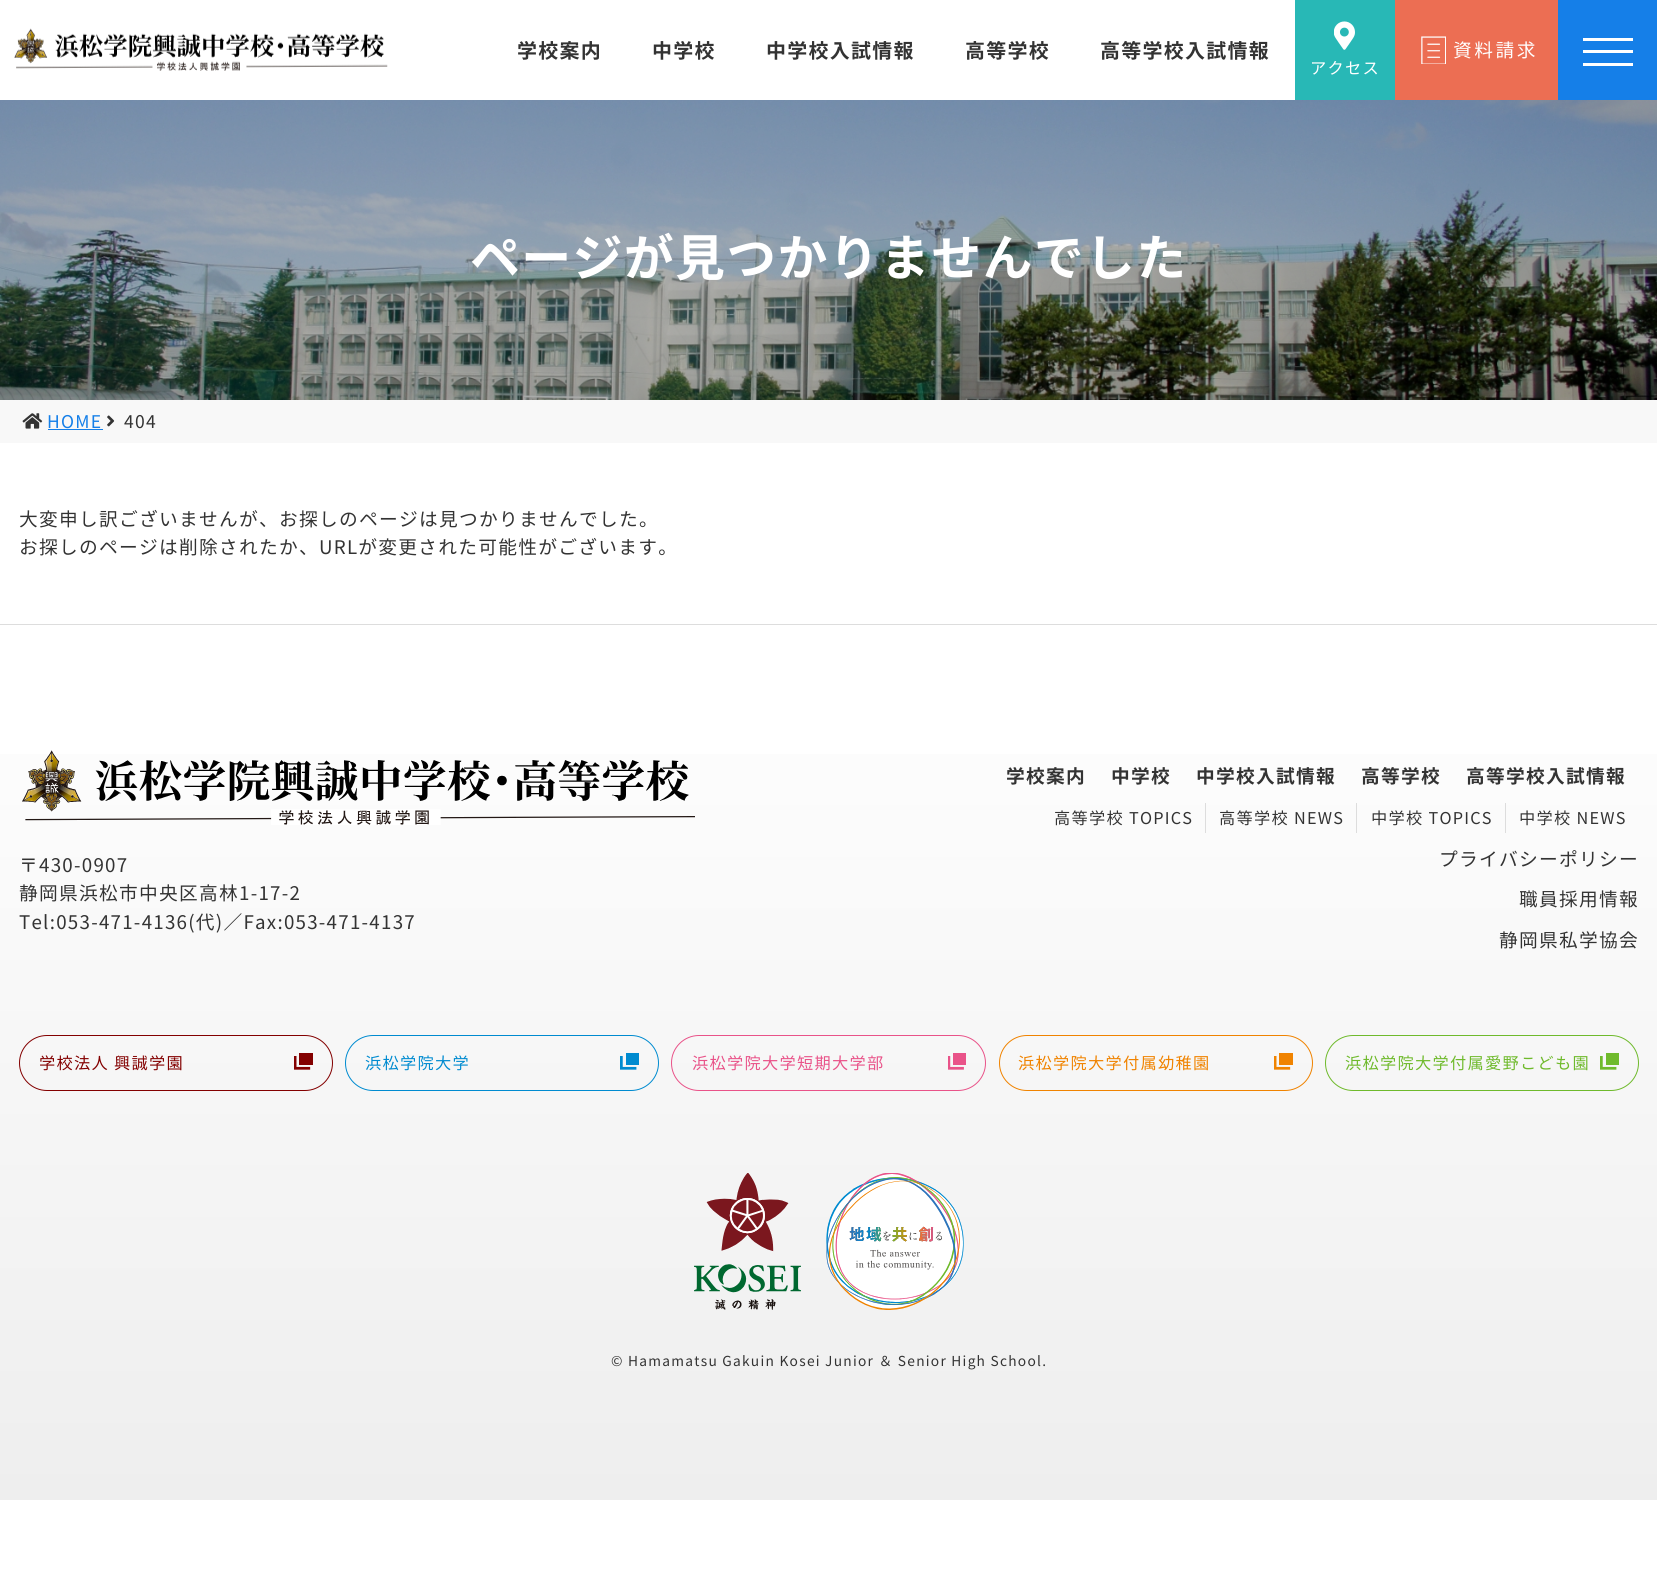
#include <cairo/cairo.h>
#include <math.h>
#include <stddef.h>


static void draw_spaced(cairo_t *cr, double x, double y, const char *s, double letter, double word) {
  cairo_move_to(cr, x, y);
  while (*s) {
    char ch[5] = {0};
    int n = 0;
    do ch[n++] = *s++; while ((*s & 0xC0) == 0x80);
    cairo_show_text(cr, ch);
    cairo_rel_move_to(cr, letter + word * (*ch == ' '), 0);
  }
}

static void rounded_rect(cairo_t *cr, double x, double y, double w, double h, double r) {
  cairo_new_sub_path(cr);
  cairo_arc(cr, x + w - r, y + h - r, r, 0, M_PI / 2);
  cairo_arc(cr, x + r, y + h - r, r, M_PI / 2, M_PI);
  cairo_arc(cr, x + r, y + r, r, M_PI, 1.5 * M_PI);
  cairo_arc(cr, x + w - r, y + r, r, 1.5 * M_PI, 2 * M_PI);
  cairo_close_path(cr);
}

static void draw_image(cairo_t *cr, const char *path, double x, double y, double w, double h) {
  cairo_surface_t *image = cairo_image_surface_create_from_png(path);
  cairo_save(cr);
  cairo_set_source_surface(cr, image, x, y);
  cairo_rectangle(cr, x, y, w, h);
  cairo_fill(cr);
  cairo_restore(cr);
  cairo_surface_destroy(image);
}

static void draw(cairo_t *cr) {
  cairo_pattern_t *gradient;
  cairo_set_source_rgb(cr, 1, 1, 1);
  cairo_paint(cr);
  draw_image(cr, "images/1.png", 14, 28, 374, 43);
  cairo_set_source_rgb(cr, 236 / 255.0, 110 / 255.0, 83 / 255.0);
  cairo_rectangle(cr, 1395, 0, 163, 100);
  cairo_fill(cr);
  draw_image(cr, "images/2.png", 1421, 36, 25, 28);
  cairo_set_source_rgb(cr, 21 / 255.0, 127 / 255.0, 232 / 255.0);
  cairo_rectangle(cr, 1558, 0, 99, 100);
  cairo_fill(cr);
  cairo_set_source_rgb(cr, 40 / 255.0, 184 / 255.0, 182 / 255.0);
  cairo_rectangle(cr, 1295, 0, 100, 100);
  cairo_fill(cr);
  draw_image(cr, "images/3.png", 1334, 21, 21, 29);
  cairo_set_source_rgb(cr, 1, 1, 1);
  cairo_rectangle(cr, 1583, 38, 50, 3);
  cairo_fill(cr);
  cairo_rectangle(cr, 1583, 50, 50, 3);
  cairo_fill(cr);
  cairo_rectangle(cr, 1583, 63, 50, 3);
  cairo_fill(cr);
  draw_image(cr, "images/4.png", 0, 100, 1657, 300);
  cairo_set_source_rgb(cr, 248 / 255.0, 248 / 255.0, 248 / 255.0);
  cairo_rectangle(cr, 0, 400, 1657, 43);
  cairo_fill(cr);
  draw_image(cr, "images/5.png", 22, 413, 21, 16);
  cairo_set_source_rgb(cr, 21 / 255.0, 127 / 255.0, 232 / 255.0);
  cairo_rectangle(cr, 48, 429, 55, 1);
  cairo_fill(cr);
  draw_image(cr, "images/6.png", 107, 415, 8, 12);
  gradient = cairo_pattern_create_linear(829, 625, 829, 1500);
  cairo_pattern_add_color_stop_rgba(gradient, 0, 1, 1, 1, 1);
  cairo_pattern_add_color_stop_rgba(gradient, 1, 238 / 255.0, 238 / 255.0, 238 / 255.0, 1);
  cairo_set_source(cr, gradient);
  cairo_pattern_destroy(gradient);
  cairo_rectangle(cr, 0, 754, 1657, 746);
  cairo_fill(cr);
  cairo_set_source_rgb(cr, 221 / 255.0, 221 / 255.0, 221 / 255.0);
  cairo_rectangle(cr, 0, 624, 1657, 1);
  cairo_fill(cr);
  draw_image(cr, "images/7.png", 22, 750, 673, 75);
  cairo_rectangle(cr, 1205, 803, 1, 30);
  cairo_fill(cr);
  cairo_rectangle(cr, 1356, 803, 1, 30);
  cairo_fill(cr);
  cairo_rectangle(cr, 1505, 803, 1, 30);
  cairo_fill(cr);
  rounded_rect(cr, 19.5, 1035.5, 313, 55, 27.5);
  cairo_set_source_rgb(cr, 131 / 255.0, 0, 0);
  cairo_set_line_width(cr, 1);
  cairo_stroke(cr);
  draw_image(cr, "images/8.png", 294, 1053, 19, 17);
  rounded_rect(cr, 345.5, 1035.5, 313, 55, 27.5);
  cairo_set_source_rgb(cr, 0, 139 / 255.0, 208 / 255.0);
  cairo_stroke(cr);
  draw_image(cr, "images/9.png", 620, 1053, 19, 17);
  rounded_rect(cr, 671.5, 1035.5, 314, 55, 27.5);
  cairo_set_source_rgb(cr, 233 / 255.0, 83 / 255.0, 137 / 255.0);
  cairo_stroke(cr);
  draw_image(cr, "images/10.png", 948, 1053, 18, 17);
  rounded_rect(cr, 999.5, 1035.5, 313, 55, 27.5);
  cairo_set_source_rgb(cr, 240 / 255.0, 131 / 255.0, 0);
  cairo_stroke(cr);
  draw_image(cr, "images/11.png", 1274, 1053, 19, 17);
  rounded_rect(cr, 1325.5, 1035.5, 313, 55, 27.5);
  cairo_set_source_rgb(cr, 111 / 255.0, 186 / 255.0, 44 / 255.0);
  cairo_stroke(cr);
  draw_image(cr, "images/12.png", 1600, 1053, 19, 17);
  draw_image(cr, "images/13.png", 694, 1173, 107, 137);
  draw_image(cr, "images/14.png", 826, 1173, 138, 137);
  cairo_select_font_face(cr, "Noto Sans JP", CAIRO_FONT_SLANT_NORMAL, CAIRO_FONT_WEIGHT_BOLD);
  cairo_set_font_size(cr, 20);
  cairo_set_source_rgb(cr, 51 / 255.0, 51 / 255.0, 51 / 255.0);
  draw_spaced(cr, 517, 58, "学校案内", 1.25, 0);
  draw_spaced(cr, 652, 58, "中学校", 1.25, 0);
  draw_spaced(cr, 766, 58, "中学校入試情報", 1.25, 0);
  draw_spaced(cr, 965, 58, "高等学校", 1.25, 0);
  draw_spaced(cr, 1100, 58, "高等学校入試情報", 1.25, 0);
  cairo_select_font_face(cr, "Noto Sans JP", CAIRO_FONT_SLANT_NORMAL, CAIRO_FONT_WEIGHT_NORMAL);
  cairo_set_font_size(cr, 18.75);
  cairo_set_source_rgb(cr, 1, 1, 1);
  draw_spaced(cr, 1453, 57, "資料請求", 2.5, 0);
  cairo_set_font_size(cr, 16.25);
  draw_spaced(cr, 1310, 74, "アクセス", 1.25, 0);
  cairo_select_font_face(cr, "Noto Sans JP", CAIRO_FONT_SLANT_NORMAL, CAIRO_FONT_WEIGHT_BOLD);
  cairo_set_font_size(cr, 50);
  draw_spaced(cr, 470, 276, "ページが見つかりませんでした", 1.25, 0);
  cairo_select_font_face(cr, "Noto Sans JP", CAIRO_FONT_SLANT_NORMAL, CAIRO_FONT_WEIGHT_NORMAL);
  cairo_set_font_size(cr, 17.5);
  cairo_set_source_rgb(cr, 21 / 255.0, 127 / 255.0, 232 / 255.0);
  draw_spaced(cr, 47, 428, "HOME", 1.25, 0);
  cairo_set_source_rgb(cr, 51 / 255.0, 51 / 255.0, 51 / 255.0);
  draw_spaced(cr, 124, 428, "404", 1.25, 0);
  cairo_set_font_size(cr, 18.75);
  draw_spaced(cr, 19, 526, "大変申し訳ございませんが、お探しのページは見つかりませんでした。", 1.25, 0);
  draw_spaced(cr, 19, 554, "お探しのページは削除されたか、URLが変更された可能性がございます。", 1.25, 0);
  draw_spaced(cr, 19, 872, "〒430-0907", 1.25, 0);
  draw_spaced(cr, 19, 900, "静岡県浜松市中央区高林1-17-2", 1.25, 0);
  draw_spaced(cr, 19, 929, "Tel:053-471-4136(代)／Fax:053-471-4137", 1.25, 0);
  cairo_select_font_face(cr, "Noto Sans JP", CAIRO_FONT_SLANT_NORMAL, CAIRO_FONT_WEIGHT_BOLD);
  draw_spaced(cr, 1006, 783, "学校案内", 1.25, 0);
  draw_spaced(cr, 1111, 783, "中学校", 1.25, 0);
  draw_spaced(cr, 1196, 783, "中学校入試情報", 1.25, 0);
  draw_spaced(cr, 1361, 783, "高等学校", 1.25, 0);
  draw_spaced(cr, 1466, 783, "高等学校入試情報", 1.25, 0);
  cairo_select_font_face(cr, "Noto Sans JP", CAIRO_FONT_SLANT_NORMAL, CAIRO_FONT_WEIGHT_NORMAL);
  cairo_set_font_size(cr, 16.25);
  draw_spaced(cr, 1054, 824, "高等学校 TOPICS", 1.25, 0);
  draw_spaced(cr, 1219, 824, "高等学校 NEWS", 1.25, 0);
  draw_spaced(cr, 1371, 824, "中学校 TOPICS", 1.25, 0);
  draw_spaced(cr, 1519, 824, "中学校 NEWS", 1.25, 0);
  cairo_set_font_size(cr, 18.75);
  draw_spaced(cr, 1439, 866, "プライバシーポリシー", 1.25, 0);
  draw_spaced(cr, 1519, 906, "職員採用情報", 1.25, 0);
  draw_spaced(cr, 1499, 947, "静岡県私学協会", 1.25, 0);
  cairo_set_font_size(cr, 16.25);
  cairo_set_source_rgb(cr, 131 / 255.0, 0, 0);
  draw_spaced(cr, 39, 1069, "学校法人 興誠学園", 1.25, 0);
  cairo_set_source_rgb(cr, 0, 139 / 255.0, 208 / 255.0);
  draw_spaced(cr, 365, 1069, "浜松学院大学", 1.25, 0);
  cairo_set_source_rgb(cr, 233 / 255.0, 83 / 255.0, 137 / 255.0);
  draw_spaced(cr, 692, 1069, "浜松学院大学短期大学部", 1.25, 0);
  cairo_set_source_rgb(cr, 240 / 255.0, 131 / 255.0, 0);
  draw_spaced(cr, 1018, 1069, "浜松学院大学付属幼稚園", 1.25, 0);
  cairo_set_source_rgb(cr, 111 / 255.0, 186 / 255.0, 44 / 255.0);
  draw_spaced(cr, 1345, 1069, "浜松学院大学付属愛野こども園", 1.25, 0);
  cairo_set_font_size(cr, 13.75);
  cairo_set_source_rgb(cr, 51 / 255.0, 51 / 255.0, 51 / 255.0);
  draw_spaced(cr, 611, 1366, "© Hamamatsu Gakuin Kosei Junior ＆ Senior High School.", 1.25, 0);
}

int main(void) {
  cairo_surface_t *surface = cairo_image_surface_create(CAIRO_FORMAT_RGB24, 1657, 1579);
  cairo_t *cr = cairo_create(surface);
  cairo_font_options_t *options = cairo_font_options_create();
  cairo_font_options_set_hint_metrics(options, CAIRO_HINT_METRICS_OFF);
  cairo_font_options_set_hint_style(options, CAIRO_HINT_STYLE_NONE);
  cairo_set_font_options(cr, options);
  cairo_set_miter_limit(cr, 4);
  draw(cr);
  cairo_surface_write_to_png(surface, "out.png");
  cairo_font_options_destroy(options);
  cairo_destroy(cr);
  cairo_surface_destroy(surface);
  return 0;
}
